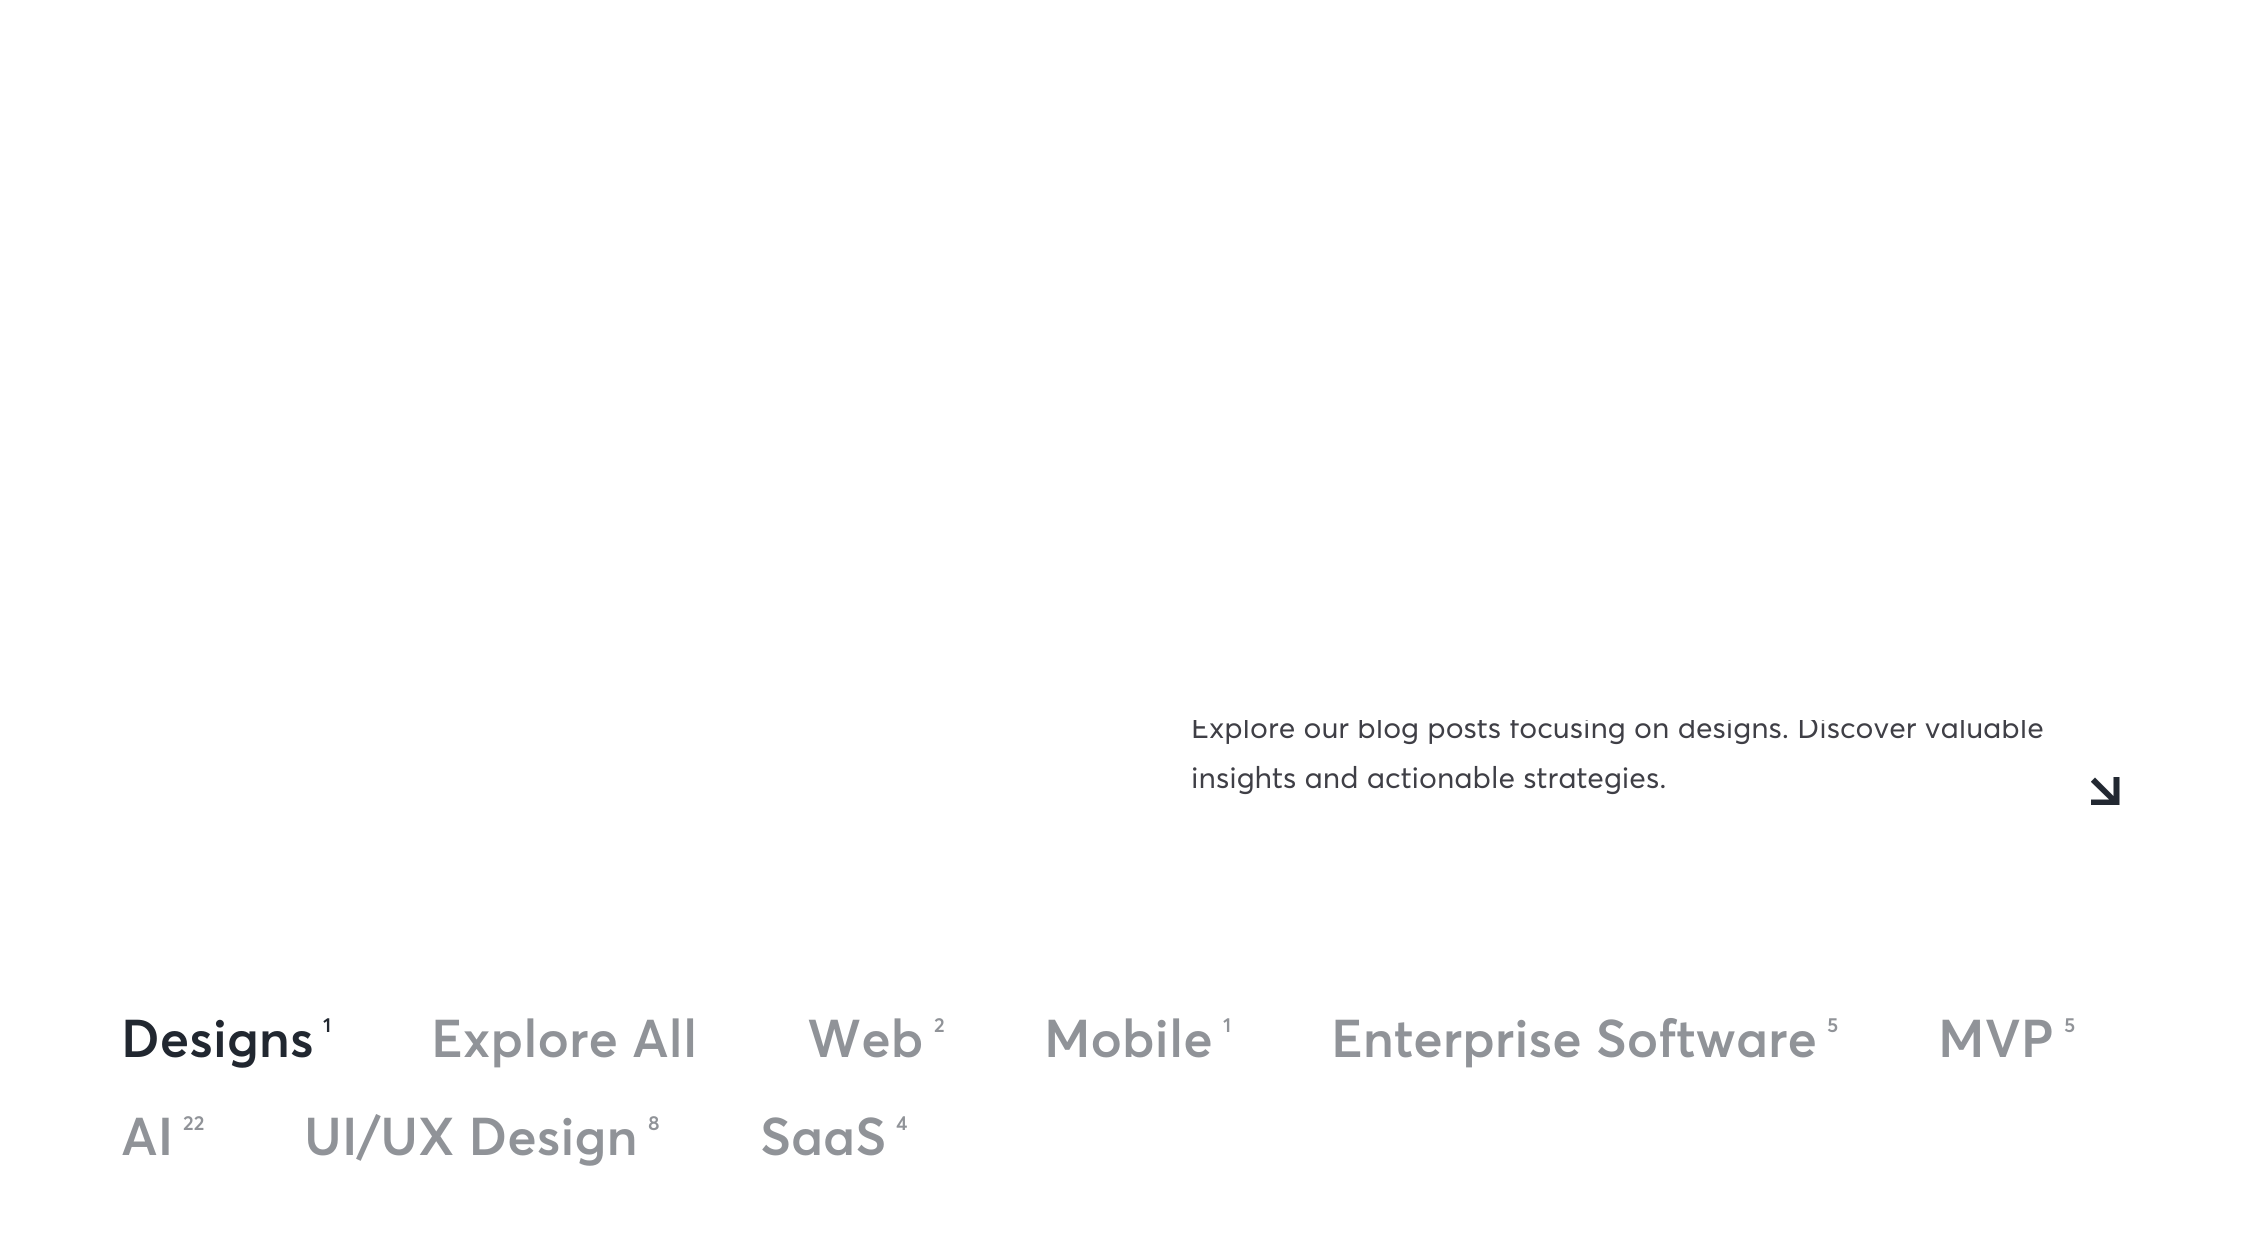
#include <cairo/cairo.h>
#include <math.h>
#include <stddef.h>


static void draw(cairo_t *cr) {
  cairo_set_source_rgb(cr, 1, 1, 1);
  cairo_paint(cr);
  cairo_set_source_rgb(cr, 34 / 255.0, 40 / 255.0, 49 / 255.0);
  cairo_new_path(cr);
  cairo_move_to(cr, 2113.5, 796);
  cairo_line_to(cr, 2095, 777.5);
  cairo_line_to(cr, 2091, 781.5);
  cairo_line_to(cr, 2091, 782);
  cairo_line_to(cr, 2109, 799.5);
  cairo_line_to(cr, 2091, 799.5);
  cairo_line_to(cr, 2091, 805);
  cairo_line_to(cr, 2119.5, 805);
  cairo_line_to(cr, 2119.5, 777);
  cairo_line_to(cr, 2113.5, 777);
  cairo_close_path(cr);
  cairo_fill(cr);
  cairo_select_font_face(cr, "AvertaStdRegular", CAIRO_FONT_SLANT_NORMAL, CAIRO_FONT_WEIGHT_NORMAL);
  cairo_set_font_size(cr, 30);
  cairo_set_source_rgb(cr, 63 / 255.0, 63 / 255.0, 70 / 255.0);
  cairo_move_to(cr, 1191, 738);
  cairo_show_text(cr, "Explore our blog posts focusing on designs. Discover valuable");
  cairo_move_to(cr, 1191, 788);
  cairo_show_text(cr, "insights and actionable strategies.");
  cairo_set_source_rgb(cr, 1, 1, 1);
  cairo_rectangle(cr, 1193, 715, 832, 5);
  cairo_fill(cr);
  cairo_select_font_face(cr, "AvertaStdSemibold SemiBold", CAIRO_FONT_SLANT_NORMAL, CAIRO_FONT_WEIGHT_NORMAL);
  cairo_set_font_size(cr, 52.5);
  cairo_set_source_rgb(cr, 33 / 255.0, 39 / 255.0, 48 / 255.0);
  cairo_move_to(cr, 121, 1057);
  cairo_show_text(cr, "Designs");
  cairo_set_font_size(cr, 20);
  cairo_move_to(cr, 323, 1032);
  cairo_show_text(cr, "1");
  cairo_set_font_size(cr, 52.5);
  cairo_set_source_rgb(cr, 144 / 255.0, 147 / 255.0, 152 / 255.0);
  cairo_move_to(cr, 431, 1057);
  cairo_show_text(cr, "Explore All");
  cairo_move_to(cr, 807, 1057);
  cairo_show_text(cr, "Web");
  cairo_set_font_size(cr, 20);
  cairo_move_to(cr, 934, 1032);
  cairo_show_text(cr, "2");
  cairo_set_font_size(cr, 52.5);
  cairo_move_to(cr, 1044, 1057);
  cairo_show_text(cr, "Mobile");
  cairo_set_font_size(cr, 20);
  cairo_move_to(cr, 1223, 1032);
  cairo_show_text(cr, "1");
  cairo_set_font_size(cr, 52.5);
  cairo_move_to(cr, 1331, 1057);
  cairo_show_text(cr, "Enterprise Software");
  cairo_set_font_size(cr, 20);
  cairo_move_to(cr, 1827, 1032);
  cairo_show_text(cr, "5");
  cairo_set_font_size(cr, 52.5);
  cairo_move_to(cr, 1938, 1057);
  cairo_show_text(cr, "MVP");
  cairo_set_font_size(cr, 20);
  cairo_move_to(cr, 2064, 1032);
  cairo_show_text(cr, "5");
  cairo_set_font_size(cr, 52.5);
  cairo_move_to(cr, 121, 1155);
  cairo_show_text(cr, "AI");
  cairo_set_font_size(cr, 20);
  cairo_move_to(cr, 183, 1130);
  cairo_show_text(cr, "22");
  cairo_set_font_size(cr, 52.5);
  cairo_move_to(cr, 304, 1155);
  cairo_show_text(cr, "UI/UX Design");
  cairo_set_font_size(cr, 20);
  cairo_move_to(cr, 648, 1130);
  cairo_show_text(cr, "8");
  cairo_set_font_size(cr, 52.5);
  cairo_move_to(cr, 760, 1155);
  cairo_show_text(cr, "SaaS");
  cairo_set_font_size(cr, 20);
  cairo_move_to(cr, 896, 1130);
  cairo_show_text(cr, "4");
}

int main(void) {
  cairo_surface_t *surface = cairo_image_surface_create(CAIRO_FORMAT_RGB24, 2241, 1241);
  cairo_t *cr = cairo_create(surface);
  cairo_font_options_t *options = cairo_font_options_create();
  cairo_font_options_set_hint_metrics(options, CAIRO_HINT_METRICS_OFF);
  cairo_font_options_set_hint_style(options, CAIRO_HINT_STYLE_NONE);
  cairo_set_font_options(cr, options);
  cairo_set_miter_limit(cr, 4);
  draw(cr);
  cairo_surface_write_to_png(surface, "out.png");
  cairo_font_options_destroy(options);
  cairo_destroy(cr);
  cairo_surface_destroy(surface);
  return 0;
}
